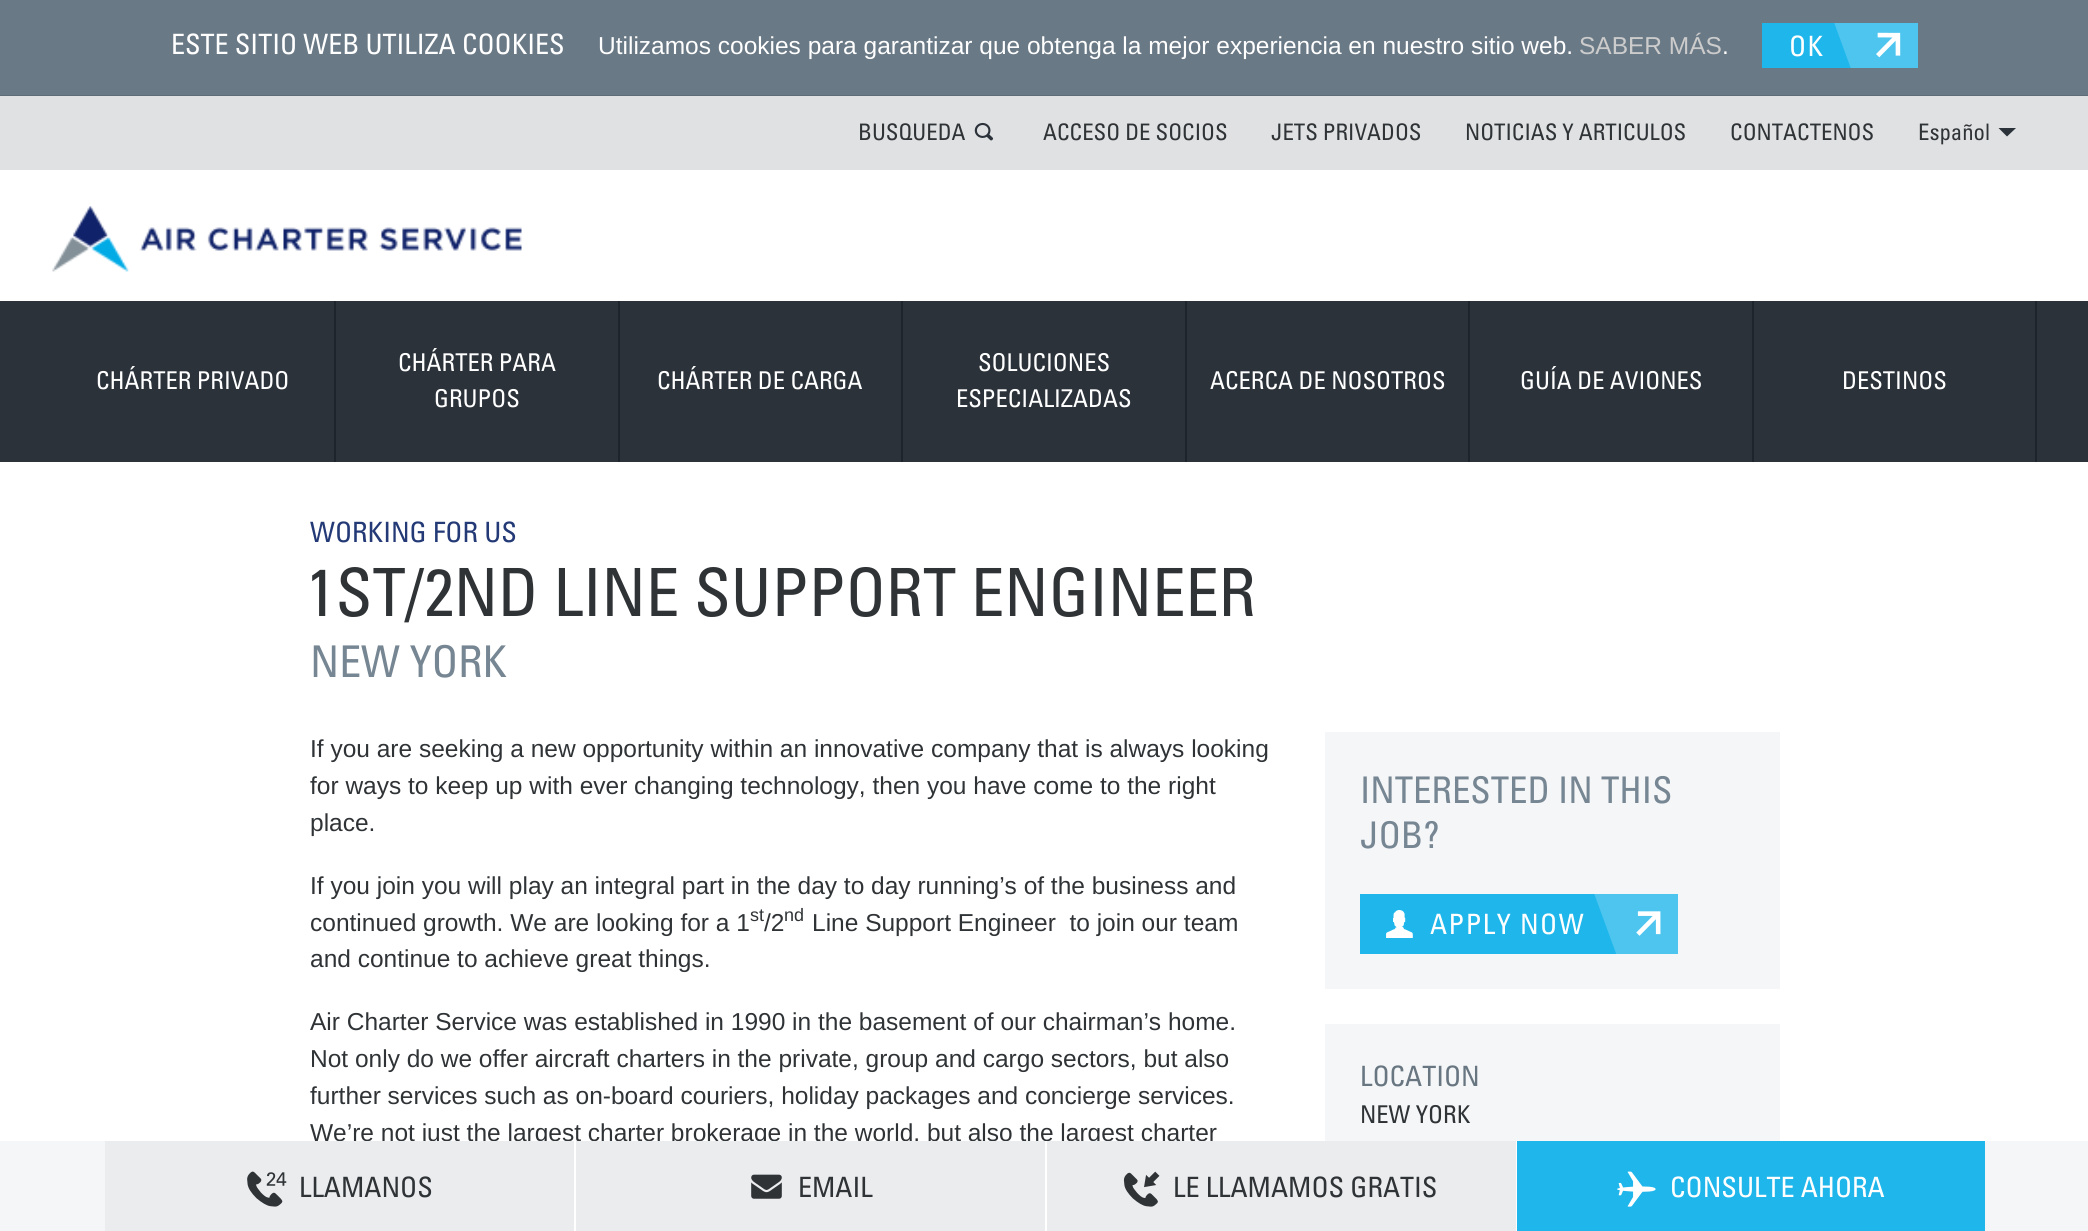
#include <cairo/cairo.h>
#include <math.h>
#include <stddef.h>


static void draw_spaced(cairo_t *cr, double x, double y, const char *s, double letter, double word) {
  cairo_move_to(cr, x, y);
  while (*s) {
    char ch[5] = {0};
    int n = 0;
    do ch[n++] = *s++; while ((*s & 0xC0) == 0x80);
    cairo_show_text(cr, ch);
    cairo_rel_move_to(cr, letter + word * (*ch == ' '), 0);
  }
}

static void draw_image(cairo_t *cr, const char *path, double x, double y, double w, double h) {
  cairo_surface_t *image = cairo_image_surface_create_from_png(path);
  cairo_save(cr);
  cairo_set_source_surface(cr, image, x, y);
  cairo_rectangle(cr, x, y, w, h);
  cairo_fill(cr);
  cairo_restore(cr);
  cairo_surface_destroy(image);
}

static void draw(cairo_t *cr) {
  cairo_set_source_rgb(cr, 1, 1, 1);
  cairo_paint(cr);
  cairo_set_source_rgb(cr, 106 / 255.0, 121 / 255.0, 134 / 255.0);
  cairo_rectangle(cr, 0, 0, 2088, 95);
  cairo_fill(cr);
  cairo_set_source_rgb(cr, 94 / 255.0, 108 / 255.0, 120 / 255.0);
  cairo_rectangle(cr, 0, 95, 2088, 1);
  cairo_fill(cr);
  cairo_set_source_rgb(cr, 31 / 255.0, 182 / 255.0, 235 / 255.0);
  cairo_rectangle(cr, 1762, 23, 89, 45);
  cairo_fill(cr);
  cairo_save(cr);
  cairo_rectangle(cr, 1762, 23, 156, 45);
  cairo_clip(cr);
  cairo_set_source_rgb(cr, 78 / 255.0, 197 / 255.0, 239 / 255.0);
  cairo_new_path(cr);
  cairo_move_to(cr, 1831, 14);
  cairo_line_to(cr, 1913, -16);
  cairo_line_to(cr, 1944, 69);
  cairo_line_to(cr, 1862, 99);
  cairo_close_path(cr);
  cairo_fill(cr);
  cairo_restore(cr);
  draw_image(cr, "images/1.png", 1876, 32, 25, 26);
  cairo_set_source_rgb(cr, 224 / 255.0, 225 / 255.0, 227 / 255.0);
  cairo_rectangle(cr, 0, 96, 2088, 74);
  cairo_fill(cr);
  draw_image(cr, "images/2.png", 974, 122, 20, 19);
  cairo_set_source_rgb(cr, 43 / 255.0, 50 / 255.0, 58 / 255.0);
  cairo_new_path(cr);
  cairo_move_to(cr, 1998.5, 128);
  cairo_line_to(cr, 2016, 128);
  cairo_line_to(cr, 2007, 136.5);
  cairo_close_path(cr);
  cairo_fill(cr);
  draw_image(cr, "images/3.png", 52, 206, 470, 66);
  cairo_rectangle(cr, 0, 301, 2088, 161);
  cairo_fill(cr);
  cairo_set_source_rgb(cr, 29 / 255.0, 36 / 255.0, 44 / 255.0);
  cairo_rectangle(cr, 334, 301, 2, 161);
  cairo_fill(cr);
  cairo_rectangle(cr, 618, 301, 2, 161);
  cairo_fill(cr);
  cairo_rectangle(cr, 901, 301, 2, 161);
  cairo_fill(cr);
  cairo_rectangle(cr, 1185, 301, 2, 161);
  cairo_fill(cr);
  cairo_rectangle(cr, 1468, 301, 2, 161);
  cairo_fill(cr);
  cairo_rectangle(cr, 1752, 301, 2, 161);
  cairo_fill(cr);
  cairo_rectangle(cr, 2035, 301, 2, 161);
  cairo_fill(cr);
  cairo_set_source_rgb(cr, 245 / 255.0, 246 / 255.0, 248 / 255.0);
  cairo_rectangle(cr, 1325, 732, 455, 257);
  cairo_fill(cr);
  cairo_set_source_rgb(cr, 31 / 255.0, 182 / 255.0, 235 / 255.0);
  cairo_rectangle(cr, 1360, 894, 257, 60);
  cairo_fill(cr);
  draw_image(cr, "images/4.png", 1386, 910, 27, 28);
  cairo_save(cr);
  cairo_rectangle(cr, 1360, 894, 318, 60);
  cairo_clip(cr);
  cairo_set_source_rgb(cr, 78 / 255.0, 197 / 255.0, 239 / 255.0);
  cairo_new_path(cr);
  cairo_move_to(cr, 1591, 885);
  cairo_line_to(cr, 1673, 855);
  cairo_line_to(cr, 1714, 967);
  cairo_line_to(cr, 1632, 997);
  cairo_close_path(cr);
  cairo_fill(cr);
  cairo_restore(cr);
  draw_image(cr, "images/5.png", 1636, 911, 25, 25);
  cairo_set_source_rgb(cr, 245 / 255.0, 246 / 255.0, 248 / 255.0);
  cairo_rectangle(cr, 1325, 1024, 455, 117);
  cairo_fill(cr);
  cairo_select_font_face(cr, "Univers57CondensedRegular", CAIRO_FONT_SLANT_NORMAL, CAIRO_FONT_WEIGHT_NORMAL);
  cairo_set_font_size(cr, 28);
  cairo_set_source_rgb(cr, 1, 1, 1);
  cairo_move_to(cr, 171, 54);
  cairo_show_text(cr, "ESTE SITIO WEB UTILIZA COOKIES");
  cairo_select_font_face(cr, "Liberation Sans", CAIRO_FONT_SLANT_NORMAL, CAIRO_FONT_WEIGHT_NORMAL);
  cairo_set_font_size(cr, 24.5);
  cairo_move_to(cr, 598, 54);
  cairo_show_text(cr, "Utilizamos cookies para garantizar que obtenga la mejor experiencia en nuestro sitio web.");
  cairo_set_source_rgb(cr, 204 / 255.0, 204 / 255.0, 204 / 255.0);
  cairo_move_to(cr, 1579, 54);
  cairo_show_text(cr, "SABER MÁS");
  cairo_set_source_rgb(cr, 1, 1, 1);
  cairo_move_to(cr, 1722, 54);
  cairo_show_text(cr, ".");
  cairo_select_font_face(cr, "Univers57CondensedRegular", CAIRO_FONT_SLANT_NORMAL, CAIRO_FONT_WEIGHT_NORMAL);
  cairo_set_font_size(cr, 28);
  draw_spaced(cr, 1789, 56, "OK", 1.5, 0);
  cairo_set_font_size(cr, 22.75);
  cairo_set_source_rgb(cr, 47 / 255.0, 51 / 255.0, 54 / 255.0);
  cairo_move_to(cr, 858, 140);
  cairo_show_text(cr, "BUSQUEDA");
  cairo_move_to(cr, 1043, 140);
  cairo_show_text(cr, "ACCESO DE SOCIOS");
  cairo_move_to(cr, 1271, 140);
  cairo_show_text(cr, "JETS PRIVADOS");
  cairo_move_to(cr, 1465, 140);
  cairo_show_text(cr, "NOTICIAS Y ARTICULOS");
  cairo_move_to(cr, 1730, 140);
  cairo_show_text(cr, "CONTACTENOS");
  cairo_move_to(cr, 1918, 140);
  cairo_show_text(cr, "Español");
  cairo_set_font_size(cr, 24.5);
  cairo_set_source_rgb(cr, 1, 1, 1);
  cairo_move_to(cr, 96, 389);
  cairo_show_text(cr, "CHÁRTER PRIVADO");
  cairo_move_to(cr, 398, 371);
  cairo_show_text(cr, "CHÁRTER PARA");
  cairo_move_to(cr, 434, 407);
  cairo_show_text(cr, "GRUPOS");
  cairo_move_to(cr, 657, 389);
  cairo_show_text(cr, "CHÁRTER DE CARGA");
  cairo_move_to(cr, 978, 371);
  cairo_show_text(cr, "SOLUCIONES");
  cairo_move_to(cr, 956, 407);
  cairo_show_text(cr, "ESPECIALIZADAS");
  cairo_move_to(cr, 1210, 389);
  cairo_show_text(cr, "ACERCA DE NOSOTROS");
  cairo_move_to(cr, 1520, 389);
  cairo_show_text(cr, "GUÍA DE AVIONES");
  cairo_move_to(cr, 1842, 389);
  cairo_show_text(cr, "DESTINOS");
  cairo_set_font_size(cr, 28);
  cairo_set_source_rgb(cr, 35 / 255.0, 58 / 255.0, 119 / 255.0);
  cairo_move_to(cr, 310, 542);
  cairo_show_text(cr, "WORKING FOR US");
  cairo_set_font_size(cr, 66.5);
  cairo_set_source_rgb(cr, 47 / 255.0, 51 / 255.0, 54 / 255.0);
  cairo_move_to(cr, 306, 616);
  cairo_show_text(cr, "1ST/2ND LINE SUPPORT ENGINEER");
  cairo_set_font_size(cr, 43.75);
  cairo_set_source_rgb(cr, 118 / 255.0, 134 / 255.0, 147 / 255.0);
  cairo_move_to(cr, 310, 677);
  cairo_show_text(cr, "NEW YORK");
  cairo_select_font_face(cr, "Liberation Sans", CAIRO_FONT_SLANT_NORMAL, CAIRO_FONT_WEIGHT_NORMAL);
  cairo_set_font_size(cr, 24.5);
  cairo_set_source_rgb(cr, 47 / 255.0, 51 / 255.0, 54 / 255.0);
  cairo_move_to(cr, 310, 757);
  cairo_show_text(cr, "If you are seeking a new opportunity within an innovative company that is always looking");
  cairo_move_to(cr, 310, 794);
  cairo_show_text(cr, "for ways to keep up with ever changing technology, then you have come to the right");
  cairo_move_to(cr, 310, 831);
  cairo_show_text(cr, "place.");
  cairo_move_to(cr, 310, 894);
  cairo_show_text(cr, "If you join you will play an integral part in the day to day running’s of the business and");
  cairo_move_to(cr, 310, 931);
  cairo_show_text(cr, "continued growth. We are looking for a 1");
  cairo_move_to(cr, 764, 931);
  cairo_show_text(cr, "/2");
  cairo_set_font_size(cr, 18);
  cairo_move_to(cr, 750, 921);
  cairo_show_text(cr, "st");
  cairo_move_to(cr, 784, 921);
  cairo_show_text(cr, "nd");
  cairo_set_font_size(cr, 24.5);
  cairo_move_to(cr, 812, 931);
  cairo_show_text(cr, "Line Support Engineer  to join our team");
  cairo_move_to(cr, 310, 967);
  cairo_show_text(cr, "and continue to achieve great things.");
  cairo_move_to(cr, 310, 1030);
  cairo_show_text(cr, "Air Charter Service was established in 1990 in the basement of our chairman’s home.");
  cairo_move_to(cr, 310, 1067);
  cairo_show_text(cr, "Not only do we offer aircraft charters in the private, group and cargo sectors, but also");
  cairo_move_to(cr, 310, 1104);
  cairo_show_text(cr, "further services such as on-board couriers, holiday packages and concierge services.");
  cairo_move_to(cr, 310, 1141);
  cairo_show_text(cr, "We’re not just the largest charter brokerage in the world, but also the largest charter");
  cairo_select_font_face(cr, "Univers57CondensedRegular", CAIRO_FONT_SLANT_NORMAL, CAIRO_FONT_WEIGHT_NORMAL);
  cairo_set_font_size(cr, 36.75);
  cairo_set_source_rgb(cr, 118 / 255.0, 134 / 255.0, 147 / 255.0);
  cairo_move_to(cr, 1360, 803);
  cairo_show_text(cr, "INTERESTED IN THIS");
  cairo_move_to(cr, 1360, 848);
  cairo_show_text(cr, "JOB?");
  cairo_set_font_size(cr, 28);
  cairo_set_source_rgb(cr, 1, 1, 1);
  draw_spaced(cr, 1430, 934, "APPLY NOW", 1.5, 0);
  cairo_set_source_rgb(cr, 104 / 255.0, 118 / 255.0, 129 / 255.0);
  cairo_move_to(cr, 1360, 1086);
  cairo_show_text(cr, "LOCATION");
  cairo_set_font_size(cr, 24.5);
  cairo_set_source_rgb(cr, 47 / 255.0, 51 / 255.0, 54 / 255.0);
  cairo_move_to(cr, 1360, 1123);
  cairo_show_text(cr, "NEW YORK");
  cairo_set_source_rgb(cr, 245 / 255.0, 246 / 255.0, 248 / 255.0);
  cairo_rectangle(cr, 0, 1141, 2088, 90);
  cairo_fill(cr);
  cairo_set_source_rgb(cr, 235 / 255.0, 236 / 255.0, 238 / 255.0);
  cairo_rectangle(cr, 105, 1141, 469, 90);
  cairo_fill(cr);
  draw_image(cr, "images/6.png", 247, 1171, 40, 36);
  cairo_set_font_size(cr, 28);
  cairo_set_source_rgb(cr, 47 / 255.0, 51 / 255.0, 54 / 255.0);
  cairo_move_to(cr, 299, 1197);
  cairo_show_text(cr, "LLAMANOS");
  cairo_set_source_rgb(cr, 1, 1, 1);
  cairo_rectangle(cr, 574, 1141, 2, 90);
  cairo_fill(cr);
  cairo_set_source_rgb(cr, 235 / 255.0, 236 / 255.0, 238 / 255.0);
  cairo_rectangle(cr, 576, 1141, 469, 90);
  cairo_fill(cr);
  draw_image(cr, "images/7.png", 751, 1174, 31, 25);
  cairo_set_source_rgb(cr, 47 / 255.0, 51 / 255.0, 54 / 255.0);
  cairo_move_to(cr, 798, 1197);
  cairo_show_text(cr, "EMAIL");
  cairo_set_source_rgb(cr, 1, 1, 1);
  cairo_rectangle(cr, 1045, 1141, 2, 90);
  cairo_fill(cr);
  cairo_set_source_rgb(cr, 235 / 255.0, 236 / 255.0, 238 / 255.0);
  cairo_rectangle(cr, 1047, 1141, 469, 90);
  cairo_fill(cr);
  draw_image(cr, "images/8.png", 1123, 1171, 37, 36);
  cairo_set_source_rgb(cr, 47 / 255.0, 51 / 255.0, 54 / 255.0);
  cairo_move_to(cr, 1173, 1197);
  cairo_show_text(cr, "LE LLAMAMOS GRATIS");
  cairo_set_source_rgb(cr, 1, 1, 1);
  cairo_rectangle(cr, 1516, 1141, 1, 90);
  cairo_fill(cr);
  cairo_set_source_rgb(cr, 31 / 255.0, 182 / 255.0, 235 / 255.0);
  cairo_rectangle(cr, 1517, 1141, 468, 90);
  cairo_fill(cr);
  draw_image(cr, "images/9.png", 1617, 1171, 39, 36);
  cairo_set_source_rgb(cr, 1, 1, 1);
  cairo_move_to(cr, 1670, 1197);
  cairo_show_text(cr, "CONSULTE AHORA");
}

int main(void) {
  cairo_surface_t *surface = cairo_image_surface_create(CAIRO_FORMAT_RGB24, 2088, 1231);
  cairo_t *cr = cairo_create(surface);
  cairo_font_options_t *options = cairo_font_options_create();
  cairo_font_options_set_hint_metrics(options, CAIRO_HINT_METRICS_OFF);
  cairo_font_options_set_hint_style(options, CAIRO_HINT_STYLE_NONE);
  cairo_set_font_options(cr, options);
  cairo_set_miter_limit(cr, 4);
  draw(cr);
  cairo_surface_write_to_png(surface, "out.png");
  cairo_font_options_destroy(options);
  cairo_destroy(cr);
  cairo_surface_destroy(surface);
  return 0;
}
